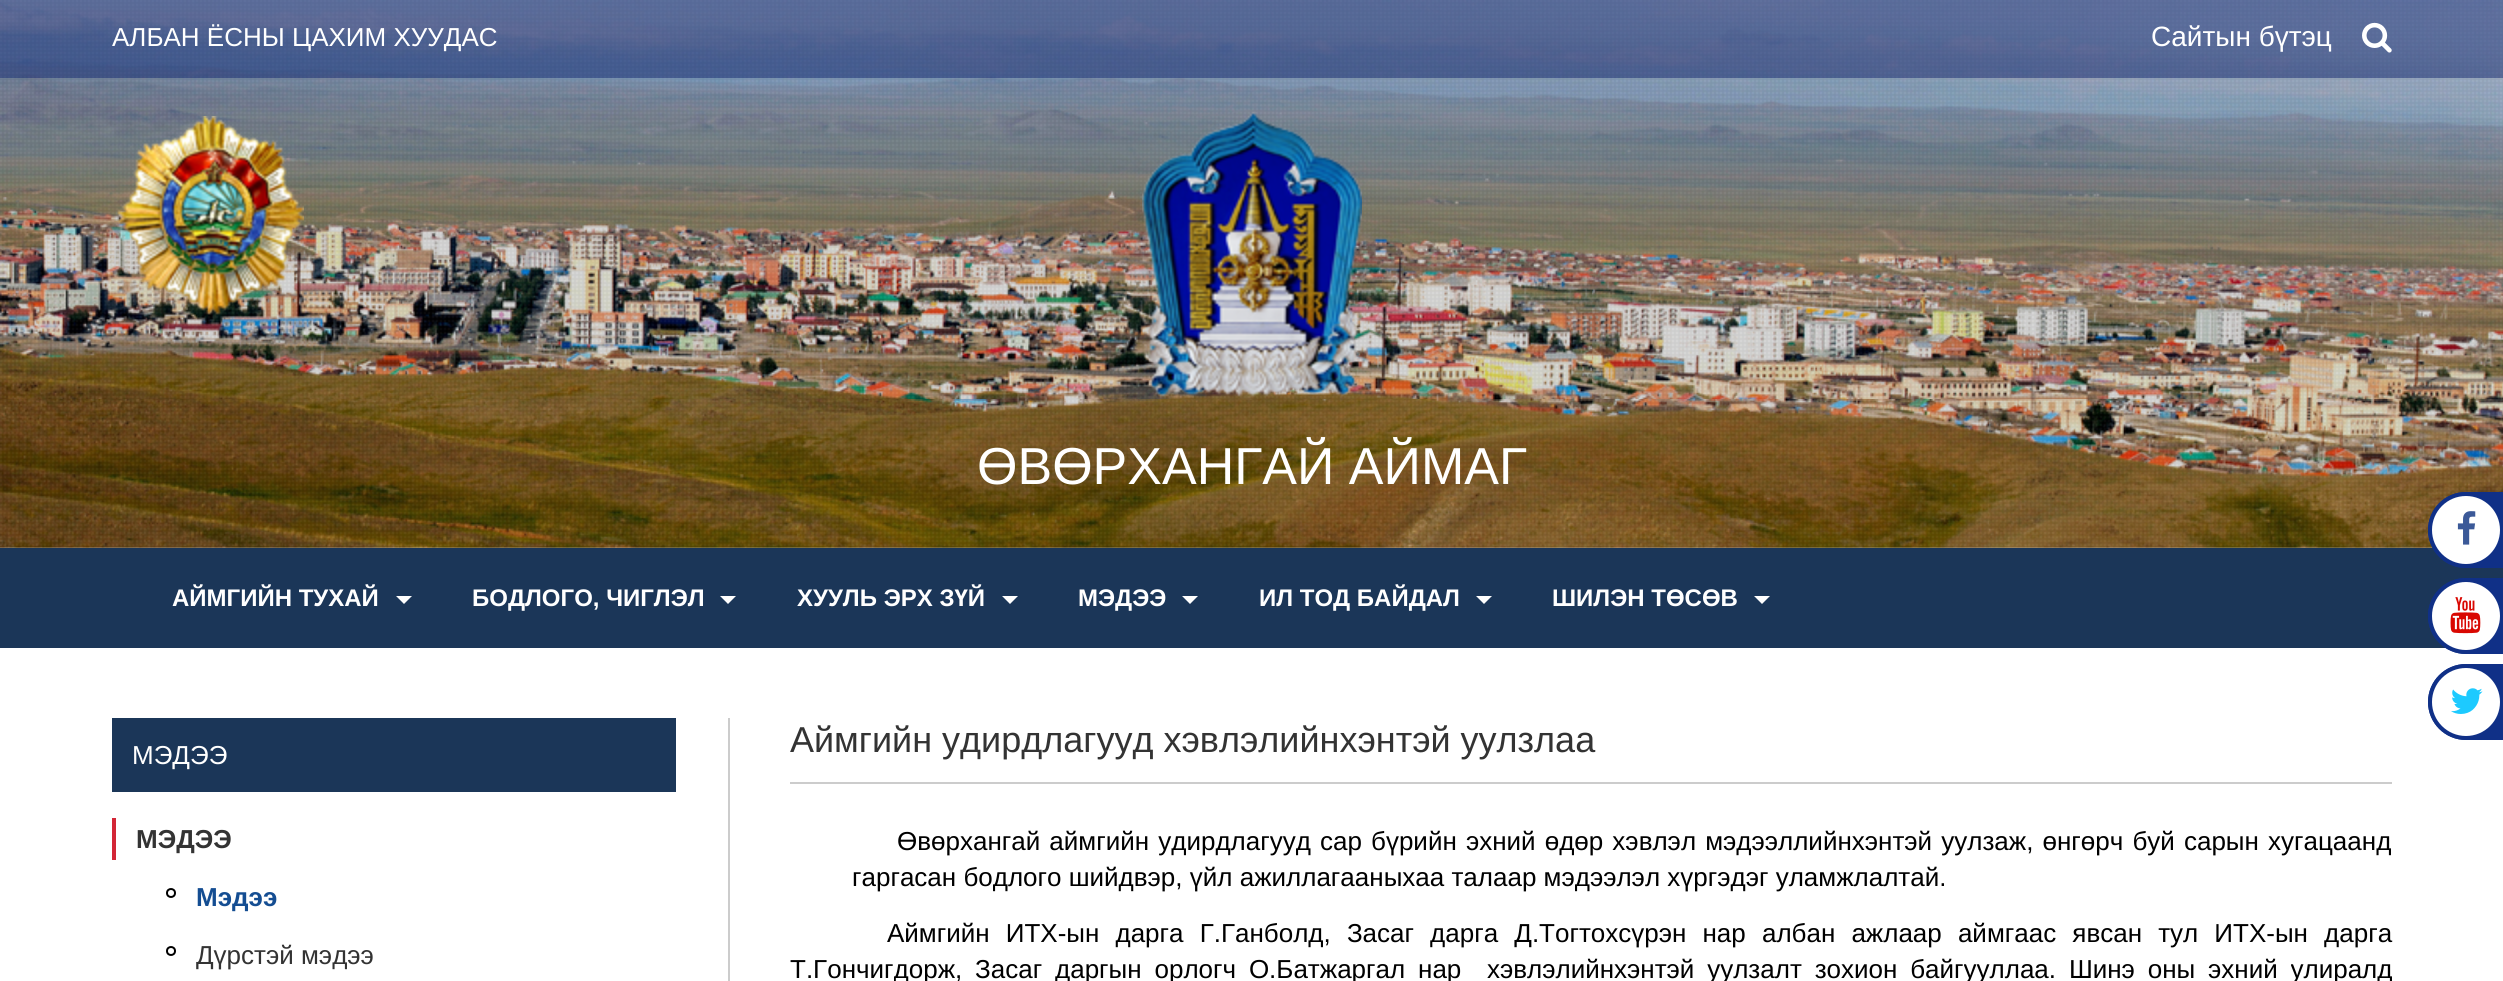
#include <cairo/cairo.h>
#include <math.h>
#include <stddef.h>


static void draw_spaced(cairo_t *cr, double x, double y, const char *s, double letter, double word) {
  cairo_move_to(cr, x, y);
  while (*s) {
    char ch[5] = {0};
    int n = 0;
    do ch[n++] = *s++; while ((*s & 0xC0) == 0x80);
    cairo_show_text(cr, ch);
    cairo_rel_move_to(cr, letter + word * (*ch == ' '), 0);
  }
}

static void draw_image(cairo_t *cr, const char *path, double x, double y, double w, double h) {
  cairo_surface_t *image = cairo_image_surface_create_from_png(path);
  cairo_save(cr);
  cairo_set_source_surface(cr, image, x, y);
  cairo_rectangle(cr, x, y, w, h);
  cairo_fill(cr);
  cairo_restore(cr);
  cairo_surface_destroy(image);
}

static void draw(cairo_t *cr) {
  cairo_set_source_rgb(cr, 1, 1, 1);
  cairo_paint(cr);
  draw_image(cr, "images/1.png", 0, 0, 2503, 548);
  draw_image(cr, "images/2.png", 0, 0, 2503, 548);
  cairo_set_source_rgba(cr, 17 / 255.0, 37 / 255.0, 109 / 255.0, 0.5);
  cairo_rectangle(cr, 0, 0, 2503, 78);
  cairo_fill(cr);
  draw_image(cr, "images/3.png", 2362, 22, 30, 31);
  draw_image(cr, "images/4.png", 117, 116, 187, 199);
  draw_image(cr, "images/5.png", 1142, 111, 220, 289);
  cairo_set_source_rgb(cr, 27 / 255.0, 54 / 255.0, 88 / 255.0);
  cairo_rectangle(cr, 0, 548, 2503, 100);
  cairo_fill(cr);
  cairo_set_source_rgb(cr, 1, 1, 1);
  cairo_new_path(cr);
  cairo_move_to(cr, 396, 596);
  cairo_line_to(cr, 412, 596);
  cairo_line_to(cr, 404, 604);
  cairo_close_path(cr);
  cairo_fill(cr);
  cairo_new_path(cr);
  cairo_move_to(cr, 720, 596);
  cairo_line_to(cr, 736, 596);
  cairo_line_to(cr, 728, 604);
  cairo_close_path(cr);
  cairo_fill(cr);
  cairo_new_path(cr);
  cairo_move_to(cr, 1002, 596);
  cairo_line_to(cr, 1018, 596);
  cairo_line_to(cr, 1010, 604);
  cairo_close_path(cr);
  cairo_fill(cr);
  cairo_new_path(cr);
  cairo_move_to(cr, 1182, 596);
  cairo_line_to(cr, 1198, 596);
  cairo_line_to(cr, 1190, 604);
  cairo_close_path(cr);
  cairo_fill(cr);
  cairo_new_path(cr);
  cairo_move_to(cr, 1476, 596);
  cairo_line_to(cr, 1492, 596);
  cairo_line_to(cr, 1484, 604);
  cairo_close_path(cr);
  cairo_fill(cr);
  cairo_new_path(cr);
  cairo_move_to(cr, 1754, 596);
  cairo_line_to(cr, 1770, 596);
  cairo_line_to(cr, 1762, 604);
  cairo_close_path(cr);
  cairo_fill(cr);
  cairo_set_source_rgb(cr, 16 / 255.0, 48 / 255.0, 135 / 255.0);
  cairo_new_path(cr);
  cairo_move_to(cr, 2466, 492);
  cairo_line_to(cr, 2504, 492);
  cairo_line_to(cr, 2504, 568);
  cairo_line_to(cr, 2466, 568);
  cairo_curve_to(cr, 2445, 568, 2428, 551, 2428, 530);
  cairo_curve_to(cr, 2428, 509, 2445, 492, 2466, 492);
  cairo_close_path(cr);
  cairo_fill(cr);
  cairo_set_source_rgb(cr, 1, 1, 1);
  cairo_arc(cr, 2466, 530, 36, 0, 2 * M_PI);
  cairo_fill_preserve(cr);
  cairo_set_source_rgb(cr, 16 / 255.0, 48 / 255.0, 135 / 255.0);
  cairo_set_line_width(cr, 4);
  cairo_stroke(cr);
  draw_image(cr, "images/6.png", 2457, 511, 19, 34);
  cairo_new_path(cr);
  cairo_move_to(cr, 2466, 578);
  cairo_line_to(cr, 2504, 578);
  cairo_line_to(cr, 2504, 654);
  cairo_line_to(cr, 2466, 654);
  cairo_curve_to(cr, 2445, 654, 2428, 637, 2428, 616);
  cairo_curve_to(cr, 2428, 595, 2445, 578, 2466, 578);
  cairo_close_path(cr);
  cairo_fill(cr);
  cairo_set_source_rgb(cr, 1, 1, 1);
  cairo_arc(cr, 2466, 616, 36, 0, 2 * M_PI);
  cairo_fill_preserve(cr);
  cairo_set_source_rgb(cr, 16 / 255.0, 48 / 255.0, 135 / 255.0);
  cairo_stroke(cr);
  draw_image(cr, "images/7.png", 2450, 597, 31, 37);
  cairo_new_path(cr);
  cairo_move_to(cr, 2466, 664);
  cairo_line_to(cr, 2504, 664);
  cairo_line_to(cr, 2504, 740);
  cairo_line_to(cr, 2466, 740);
  cairo_curve_to(cr, 2445, 740, 2428, 723, 2428, 702);
  cairo_curve_to(cr, 2428, 681, 2445, 664, 2466, 664);
  cairo_close_path(cr);
  cairo_fill(cr);
  cairo_set_source_rgb(cr, 1, 1, 1);
  cairo_arc(cr, 2466, 702, 36, 0, 2 * M_PI);
  cairo_fill_preserve(cr);
  cairo_set_source_rgb(cr, 16 / 255.0, 48 / 255.0, 135 / 255.0);
  cairo_stroke(cr);
  draw_image(cr, "images/8.png", 2451, 688, 32, 26);
  cairo_set_source_rgb(cr, 27 / 255.0, 54 / 255.0, 88 / 255.0);
  cairo_rectangle(cr, 112, 718, 564, 74);
  cairo_fill(cr);
  cairo_set_source_rgb(cr, 211 / 255.0, 38 / 255.0, 54 / 255.0);
  cairo_rectangle(cr, 112, 818, 4, 42);
  cairo_fill(cr);
  cairo_arc(cr, 171, 893, 4, 0, 2 * M_PI);
  cairo_set_source_rgb(cr, 0, 0, 0);
  cairo_set_line_width(cr, 2);
  cairo_stroke(cr);
  cairo_arc(cr, 171, 951, 4, 0, 2 * M_PI);
  cairo_stroke(cr);
  cairo_set_source_rgb(cr, 204 / 255.0, 204 / 255.0, 204 / 255.0);
  cairo_rectangle(cr, 728, 718, 2, 263);
  cairo_fill(cr);
  cairo_rectangle(cr, 790, 782, 1602, 2);
  cairo_fill(cr);
  cairo_select_font_face(cr, "Liberation Sans", CAIRO_FONT_SLANT_NORMAL, CAIRO_FONT_WEIGHT_NORMAL);
  cairo_set_font_size(cr, 26);
  cairo_set_source_rgb(cr, 1, 1, 1);
  cairo_move_to(cr, 112, 46);
  cairo_show_text(cr, "АЛБАН ЁСНЫ ЦАХИМ ХУУДАС");
  cairo_set_font_size(cr, 28);
  cairo_move_to(cr, 2151, 46);
  cairo_show_text(cr, "Сайтын бүтэц");
  cairo_set_font_size(cr, 52);
  cairo_move_to(cr, 977, 484);
  cairo_show_text(cr, "ӨВӨРХАНГАЙ АЙМАГ");
  cairo_select_font_face(cr, "Liberation Sans", CAIRO_FONT_SLANT_NORMAL, CAIRO_FONT_WEIGHT_BOLD);
  cairo_set_font_size(cr, 24);
  cairo_move_to(cr, 172, 606);
  cairo_show_text(cr, "АЙМГИЙН ТУХАЙ");
  cairo_move_to(cr, 472, 606);
  cairo_show_text(cr, "БОДЛОГО, ЧИГЛЭЛ");
  cairo_move_to(cr, 797, 606);
  cairo_show_text(cr, "ХУУЛЬ ЭРХ ЗҮЙ");
  cairo_move_to(cr, 1078, 606);
  cairo_show_text(cr, "МЭДЭЭ");
  cairo_move_to(cr, 1259, 606);
  cairo_show_text(cr, "ИЛ ТОД БАЙДАЛ");
  cairo_move_to(cr, 1552, 606);
  cairo_show_text(cr, "ШИЛЭН ТӨСӨВ");
  cairo_select_font_face(cr, "Liberation Sans", CAIRO_FONT_SLANT_NORMAL, CAIRO_FONT_WEIGHT_NORMAL);
  cairo_set_font_size(cr, 26);
  cairo_move_to(cr, 132, 764);
  cairo_show_text(cr, "МЭДЭЭ");
  cairo_select_font_face(cr, "Liberation Sans", CAIRO_FONT_SLANT_NORMAL, CAIRO_FONT_WEIGHT_BOLD);
  cairo_set_source_rgb(cr, 51 / 255.0, 51 / 255.0, 51 / 255.0);
  cairo_move_to(cr, 136, 848);
  cairo_show_text(cr, "МЭДЭЭ");
  cairo_set_source_rgb(cr, 20 / 255.0, 77 / 255.0, 146 / 255.0);
  cairo_move_to(cr, 196, 906);
  cairo_show_text(cr, "Мэдээ");
  cairo_select_font_face(cr, "Liberation Sans", CAIRO_FONT_SLANT_NORMAL, CAIRO_FONT_WEIGHT_NORMAL);
  cairo_set_source_rgb(cr, 51 / 255.0, 51 / 255.0, 51 / 255.0);
  cairo_move_to(cr, 196, 964);
  cairo_show_text(cr, "Дүрстэй мэдээ");
  cairo_set_font_size(cr, 36);
  cairo_move_to(cr, 790, 752);
  cairo_show_text(cr, "Аймгийн удирдлагууд хэвлэлийнхэнтэй уулзлаа");
  cairo_set_font_size(cr, 26);
  cairo_set_source_rgb(cr, 0, 0, 0);
  draw_spaced(cr, 897, 850, "Өвөрхангай аймгийн удирдлагууд сар бүрийн эхний өдөр хэвлэл мэдээллийнхэнтэй уулзаж, өнгөрч буй сарын хугацаанд", 0, 1.9);
  cairo_move_to(cr, 852, 886);
  cairo_show_text(cr, "гаргасан бодлого шийдвэр, үйл ажиллагааныхаа талаар мэдээлэл хүргэдэг уламжлалтай.");
  draw_spaced(cr, 887, 942, "Аймгийн ИТХ-ын дарга Г.Ганболд, Засаг дарга Д.Тогтохсүрэн нар албан ажлаар аймгаас явсан тул ИТХ-ын дарга", 0, 8.9);
  draw_spaced(cr, 790, 978, "Т.Гончигдорж, Засаг даргын орлогч О.Батжаргал нар  хэвлэлийнхэнтэй уулзалт зохион байгууллаа. Шинэ оны эхний улиралд", 0, 5.6);
}

int main(void) {
  cairo_surface_t *surface = cairo_image_surface_create(CAIRO_FORMAT_RGB24, 2503, 981);
  cairo_t *cr = cairo_create(surface);
  cairo_font_options_t *options = cairo_font_options_create();
  cairo_font_options_set_hint_metrics(options, CAIRO_HINT_METRICS_OFF);
  cairo_font_options_set_hint_style(options, CAIRO_HINT_STYLE_NONE);
  cairo_set_font_options(cr, options);
  cairo_set_miter_limit(cr, 4);
  draw(cr);
  cairo_surface_write_to_png(surface, "out.png");
  cairo_font_options_destroy(options);
  cairo_destroy(cr);
  cairo_surface_destroy(surface);
  return 0;
}
